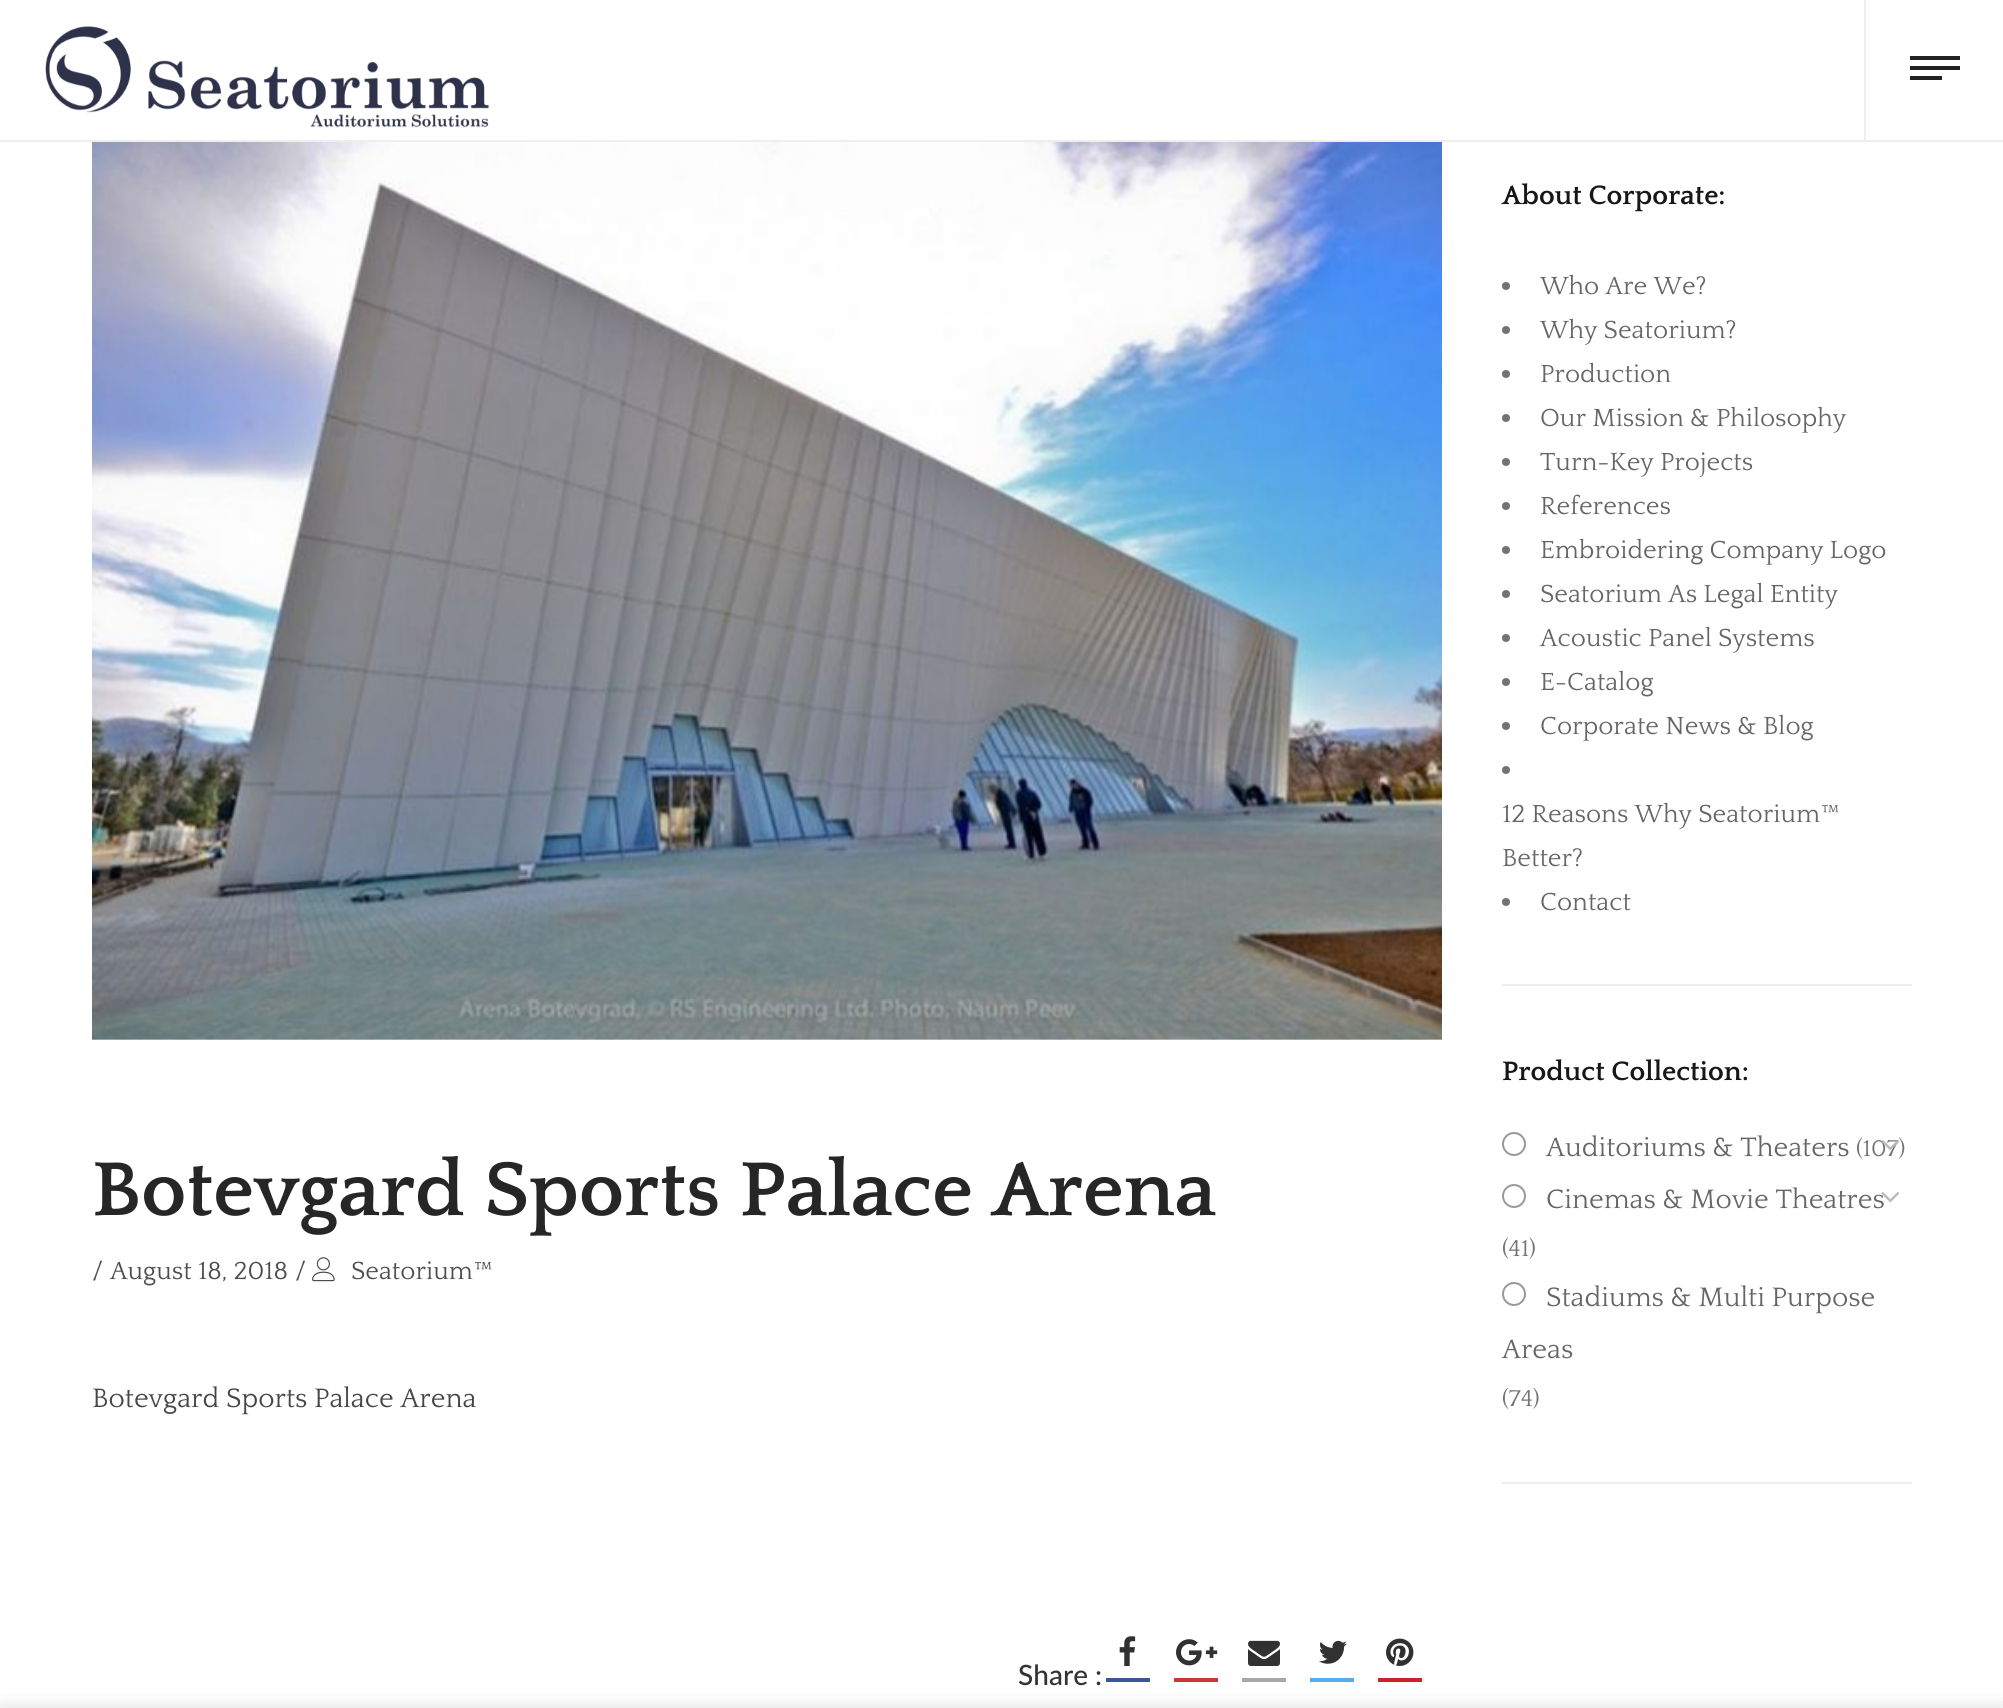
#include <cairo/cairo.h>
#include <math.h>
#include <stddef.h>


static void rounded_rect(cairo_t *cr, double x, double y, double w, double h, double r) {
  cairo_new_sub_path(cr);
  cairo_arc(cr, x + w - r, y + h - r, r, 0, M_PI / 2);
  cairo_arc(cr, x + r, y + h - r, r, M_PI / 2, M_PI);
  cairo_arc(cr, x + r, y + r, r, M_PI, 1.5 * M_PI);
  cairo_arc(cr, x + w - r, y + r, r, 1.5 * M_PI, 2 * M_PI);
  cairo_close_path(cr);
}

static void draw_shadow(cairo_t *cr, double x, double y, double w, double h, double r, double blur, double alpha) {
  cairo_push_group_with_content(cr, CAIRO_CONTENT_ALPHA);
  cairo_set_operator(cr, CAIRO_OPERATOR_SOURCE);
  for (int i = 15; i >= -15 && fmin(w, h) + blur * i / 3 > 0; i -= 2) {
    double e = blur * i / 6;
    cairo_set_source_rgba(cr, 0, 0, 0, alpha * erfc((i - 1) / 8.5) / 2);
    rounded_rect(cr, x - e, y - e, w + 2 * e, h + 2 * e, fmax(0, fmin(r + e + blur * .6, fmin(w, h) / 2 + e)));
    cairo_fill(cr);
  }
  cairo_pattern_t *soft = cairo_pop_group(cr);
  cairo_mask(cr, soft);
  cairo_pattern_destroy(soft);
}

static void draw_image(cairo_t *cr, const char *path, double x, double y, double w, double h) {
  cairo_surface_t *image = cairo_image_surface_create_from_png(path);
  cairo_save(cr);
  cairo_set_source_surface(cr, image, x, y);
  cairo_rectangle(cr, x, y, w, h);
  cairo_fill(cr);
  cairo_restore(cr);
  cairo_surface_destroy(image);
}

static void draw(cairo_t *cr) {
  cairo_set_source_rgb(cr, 1, 1, 1);
  cairo_paint(cr);
  cairo_set_source_rgb(cr, 238 / 255.0, 238 / 255.0, 238 / 255.0);
  cairo_rectangle(cr, 0, 140, 2003, 2);
  cairo_fill(cr);
  draw_image(cr, "images/1.png", 45, 26, 444, 102);
  cairo_rectangle(cr, 1864, 0, 2, 140);
  cairo_fill(cr);
  cairo_set_source_rgb(cr, 34 / 255.0, 34 / 255.0, 34 / 255.0);
  cairo_rectangle(cr, 1910, 66, 50, 4);
  cairo_fill(cr);
  cairo_rectangle(cr, 1910, 56, 50, 4);
  cairo_fill(cr);
  cairo_rectangle(cr, 1910, 76, 32, 4);
  cairo_fill(cr);
  draw_image(cr, "images/2.png", 92, 142, 1350, 898);
  draw_image(cr, "images/3.png", 312, 1257, 23, 25);
  draw_image(cr, "images/4.png", 1119, 1636, 17, 30);
  cairo_set_source_rgb(cr, 59 / 255.0, 89 / 255.0, 152 / 255.0);
  cairo_rectangle(cr, 1106, 1678, 44, 4);
  cairo_fill(cr);
  draw_image(cr, "images/5.png", 1176, 1639, 42, 27);
  cairo_set_source_rgb(cr, 204 / 255.0, 55 / 255.0, 50 / 255.0);
  cairo_rectangle(cr, 1174, 1678, 44, 4);
  cairo_fill(cr);
  draw_image(cr, "images/6.png", 1248, 1640, 32, 26);
  cairo_set_source_rgb(cr, 167 / 255.0, 167 / 255.0, 167 / 255.0);
  cairo_rectangle(cr, 1242, 1678, 44, 4);
  cairo_fill(cr);
  draw_image(cr, "images/7.png", 1319, 1640, 28, 24);
  cairo_set_source_rgb(cr, 85 / 255.0, 172 / 255.0, 238 / 255.0);
  cairo_rectangle(cr, 1310, 1678, 44, 4);
  cairo_fill(cr);
  draw_image(cr, "images/8.png", 1386, 1638, 28, 28);
  cairo_set_source_rgb(cr, 204 / 255.0, 33 / 255.0, 39 / 255.0);
  cairo_rectangle(cr, 1378, 1678, 44, 4);
  cairo_fill(cr);
  cairo_set_source_rgb(cr, 238 / 255.0, 238 / 255.0, 238 / 255.0);
  cairo_rectangle(cr, 1502, 984, 410, 2);
  cairo_fill(cr);
  cairo_set_source_rgb(cr, 115 / 255.0, 115 / 255.0, 115 / 255.0);
  cairo_arc(cr, 1506, 286, 4, 0, 2 * M_PI);
  cairo_fill(cr);
  cairo_arc(cr, 1506, 330, 4, 0, 2 * M_PI);
  cairo_fill(cr);
  cairo_arc(cr, 1506, 374, 4, 0, 2 * M_PI);
  cairo_fill(cr);
  cairo_arc(cr, 1506, 418, 4, 0, 2 * M_PI);
  cairo_fill(cr);
  cairo_arc(cr, 1506, 462, 4, 0, 2 * M_PI);
  cairo_fill(cr);
  cairo_arc(cr, 1506, 506, 4, 0, 2 * M_PI);
  cairo_fill(cr);
  cairo_arc(cr, 1506, 550, 4, 0, 2 * M_PI);
  cairo_fill(cr);
  cairo_arc(cr, 1506, 594, 4, 0, 2 * M_PI);
  cairo_fill(cr);
  cairo_arc(cr, 1506, 638, 4, 0, 2 * M_PI);
  cairo_fill(cr);
  cairo_arc(cr, 1506, 682, 4, 0, 2 * M_PI);
  cairo_fill(cr);
  cairo_arc(cr, 1506, 726, 4, 0, 2 * M_PI);
  cairo_fill(cr);
  cairo_arc(cr, 1506, 770, 4, 0, 2 * M_PI);
  cairo_fill(cr);
  cairo_arc(cr, 1506, 902, 4, 0, 2 * M_PI);
  cairo_fill(cr);
  cairo_set_source_rgb(cr, 238 / 255.0, 238 / 255.0, 238 / 255.0);
  cairo_rectangle(cr, 1502, 1482, 410, 2);
  cairo_fill(cr);
  cairo_arc(cr, 1514, 1144, 11, 0, 2 * M_PI);
  cairo_set_source_rgb(cr, 153 / 255.0, 153 / 255.0, 153 / 255.0);
  cairo_stroke(cr);
  cairo_arc(cr, 1514, 1196, 11, 0, 2 * M_PI);
  cairo_stroke(cr);
  cairo_arc(cr, 1514, 1294, 11, 0, 2 * M_PI);
  cairo_stroke(cr);
  cairo_set_source_rgb(cr, 0, 0, 0);
  draw_shadow(cr, 0, 1708, 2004, 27, 0, 9, 0.14);
  cairo_select_font_face(cr, "Quattrocento", CAIRO_FONT_SLANT_NORMAL, CAIRO_FONT_WEIGHT_BOLD);
  cairo_set_font_size(cr, 80);
  cairo_set_source_rgb(cr, 38 / 255.0, 38 / 255.0, 38 / 255.0);
  cairo_move_to(cr, 92, 1215);
  cairo_show_text(cr, "Botevgard Sports Palace Arena");
  cairo_select_font_face(cr, "Quattrocento", CAIRO_FONT_SLANT_NORMAL, CAIRO_FONT_WEIGHT_NORMAL);
  cairo_set_font_size(cr, 26);
  cairo_set_source_rgb(cr, 78 / 255.0, 78 / 255.0, 78 / 255.0);
  cairo_move_to(cr, 92, 1279);
  cairo_show_text(cr, "/");
  cairo_move_to(cr, 110, 1279);
  cairo_show_text(cr, "August 18, 2018");
  cairo_move_to(cr, 295, 1279);
  cairo_show_text(cr, "/");
  cairo_move_to(cr, 351, 1279);
  cairo_show_text(cr, "Seatorium™");
  cairo_set_font_size(cr, 28);
  cairo_set_source_rgb(cr, 70 / 255.0, 70 / 255.0, 70 / 255.0);
  cairo_move_to(cr, 92, 1407);
  cairo_show_text(cr, "Botevgard Sports Palace Arena");
  cairo_select_font_face(cr, "Lato Medium", CAIRO_FONT_SLANT_NORMAL, CAIRO_FONT_WEIGHT_NORMAL);
  cairo_set_source_rgb(cr, 51 / 255.0, 51 / 255.0, 51 / 255.0);
  cairo_move_to(cr, 1018, 1685);
  cairo_show_text(cr, "Share :");
  cairo_select_font_face(cr, "Quattrocento", CAIRO_FONT_SLANT_NORMAL, CAIRO_FONT_WEIGHT_BOLD);
  cairo_set_source_rgb(cr, 23 / 255.0, 23 / 255.0, 23 / 255.0);
  cairo_move_to(cr, 1502, 204);
  cairo_show_text(cr, "About Corporate:");
  cairo_select_font_face(cr, "Quattrocento", CAIRO_FONT_SLANT_NORMAL, CAIRO_FONT_WEIGHT_NORMAL);
  cairo_set_font_size(cr, 26);
  cairo_set_source_rgb(cr, 102 / 255.0, 102 / 255.0, 102 / 255.0);
  cairo_move_to(cr, 1540, 294);
  cairo_show_text(cr, "Who Are We?");
  cairo_move_to(cr, 1540, 338);
  cairo_show_text(cr, "Why Seatorium?");
  cairo_move_to(cr, 1540, 382);
  cairo_show_text(cr, "Production");
  cairo_move_to(cr, 1540, 426);
  cairo_show_text(cr, "Our Mission & Philosophy");
  cairo_move_to(cr, 1540, 470);
  cairo_show_text(cr, "Turn-Key Projects");
  cairo_move_to(cr, 1540, 514);
  cairo_show_text(cr, "References");
  cairo_move_to(cr, 1540, 558);
  cairo_show_text(cr, "Embroidering Company Logo");
  cairo_move_to(cr, 1540, 602);
  cairo_show_text(cr, "Seatorium As Legal Entity");
  cairo_move_to(cr, 1540, 646);
  cairo_show_text(cr, "Acoustic Panel Systems");
  cairo_move_to(cr, 1540, 690);
  cairo_show_text(cr, "E-Catalog");
  cairo_move_to(cr, 1540, 734);
  cairo_show_text(cr, "Corporate News & Blog");
  cairo_move_to(cr, 1502, 822);
  cairo_show_text(cr, "12 Reasons Why Seatorium™");
  cairo_move_to(cr, 1502, 866);
  cairo_show_text(cr, "Better?");
  cairo_move_to(cr, 1540, 910);
  cairo_show_text(cr, "Contact");
  cairo_select_font_face(cr, "Quattrocento", CAIRO_FONT_SLANT_NORMAL, CAIRO_FONT_WEIGHT_BOLD);
  cairo_set_font_size(cr, 28);
  cairo_set_source_rgb(cr, 23 / 255.0, 23 / 255.0, 23 / 255.0);
  cairo_move_to(cr, 1502, 1080);
  cairo_show_text(cr, "Product Collection:");
  cairo_select_font_face(cr, "Quattrocento", CAIRO_FONT_SLANT_NORMAL, CAIRO_FONT_WEIGHT_NORMAL);
  cairo_set_source_rgb(cr, 102 / 255.0, 102 / 255.0, 102 / 255.0);
  cairo_move_to(cr, 1546, 1156);
  cairo_show_text(cr, "Auditoriums & Theaters");
  cairo_set_font_size(cr, 24);
  cairo_set_source_rgb(cr, 115 / 255.0, 115 / 255.0, 115 / 255.0);
  cairo_move_to(cr, 1856, 1156);
  cairo_show_text(cr, "(107)");
  draw_image(cr, "images/9.png", 1881, 1140, 19, 11);
  cairo_set_font_size(cr, 28);
  cairo_set_source_rgb(cr, 102 / 255.0, 102 / 255.0, 102 / 255.0);
  cairo_move_to(cr, 1546, 1208);
  cairo_show_text(cr, "Cinemas & Movie Theatres");
  draw_image(cr, "images/10.png", 1881, 1192, 19, 11);
  cairo_set_font_size(cr, 24);
  cairo_set_source_rgb(cr, 115 / 255.0, 115 / 255.0, 115 / 255.0);
  cairo_move_to(cr, 1502, 1256);
  cairo_show_text(cr, "(41)");
  cairo_set_font_size(cr, 28);
  cairo_set_source_rgb(cr, 102 / 255.0, 102 / 255.0, 102 / 255.0);
  cairo_move_to(cr, 1546, 1306);
  cairo_show_text(cr, "Stadiums & Multi Purpose");
  cairo_move_to(cr, 1502, 1358);
  cairo_show_text(cr, "Areas");
  cairo_set_font_size(cr, 24);
  cairo_set_source_rgb(cr, 115 / 255.0, 115 / 255.0, 115 / 255.0);
  cairo_move_to(cr, 1502, 1406);
  cairo_show_text(cr, "(74)");
}

int main(void) {
  cairo_surface_t *surface = cairo_image_surface_create(CAIRO_FORMAT_RGB24, 2003, 1708);
  cairo_t *cr = cairo_create(surface);
  cairo_font_options_t *options = cairo_font_options_create();
  cairo_font_options_set_hint_metrics(options, CAIRO_HINT_METRICS_OFF);
  cairo_font_options_set_hint_style(options, CAIRO_HINT_STYLE_NONE);
  cairo_set_font_options(cr, options);
  cairo_set_miter_limit(cr, 4);
  draw(cr);
  cairo_surface_write_to_png(surface, "out.png");
  cairo_font_options_destroy(options);
  cairo_destroy(cr);
  cairo_surface_destroy(surface);
  return 0;
}
